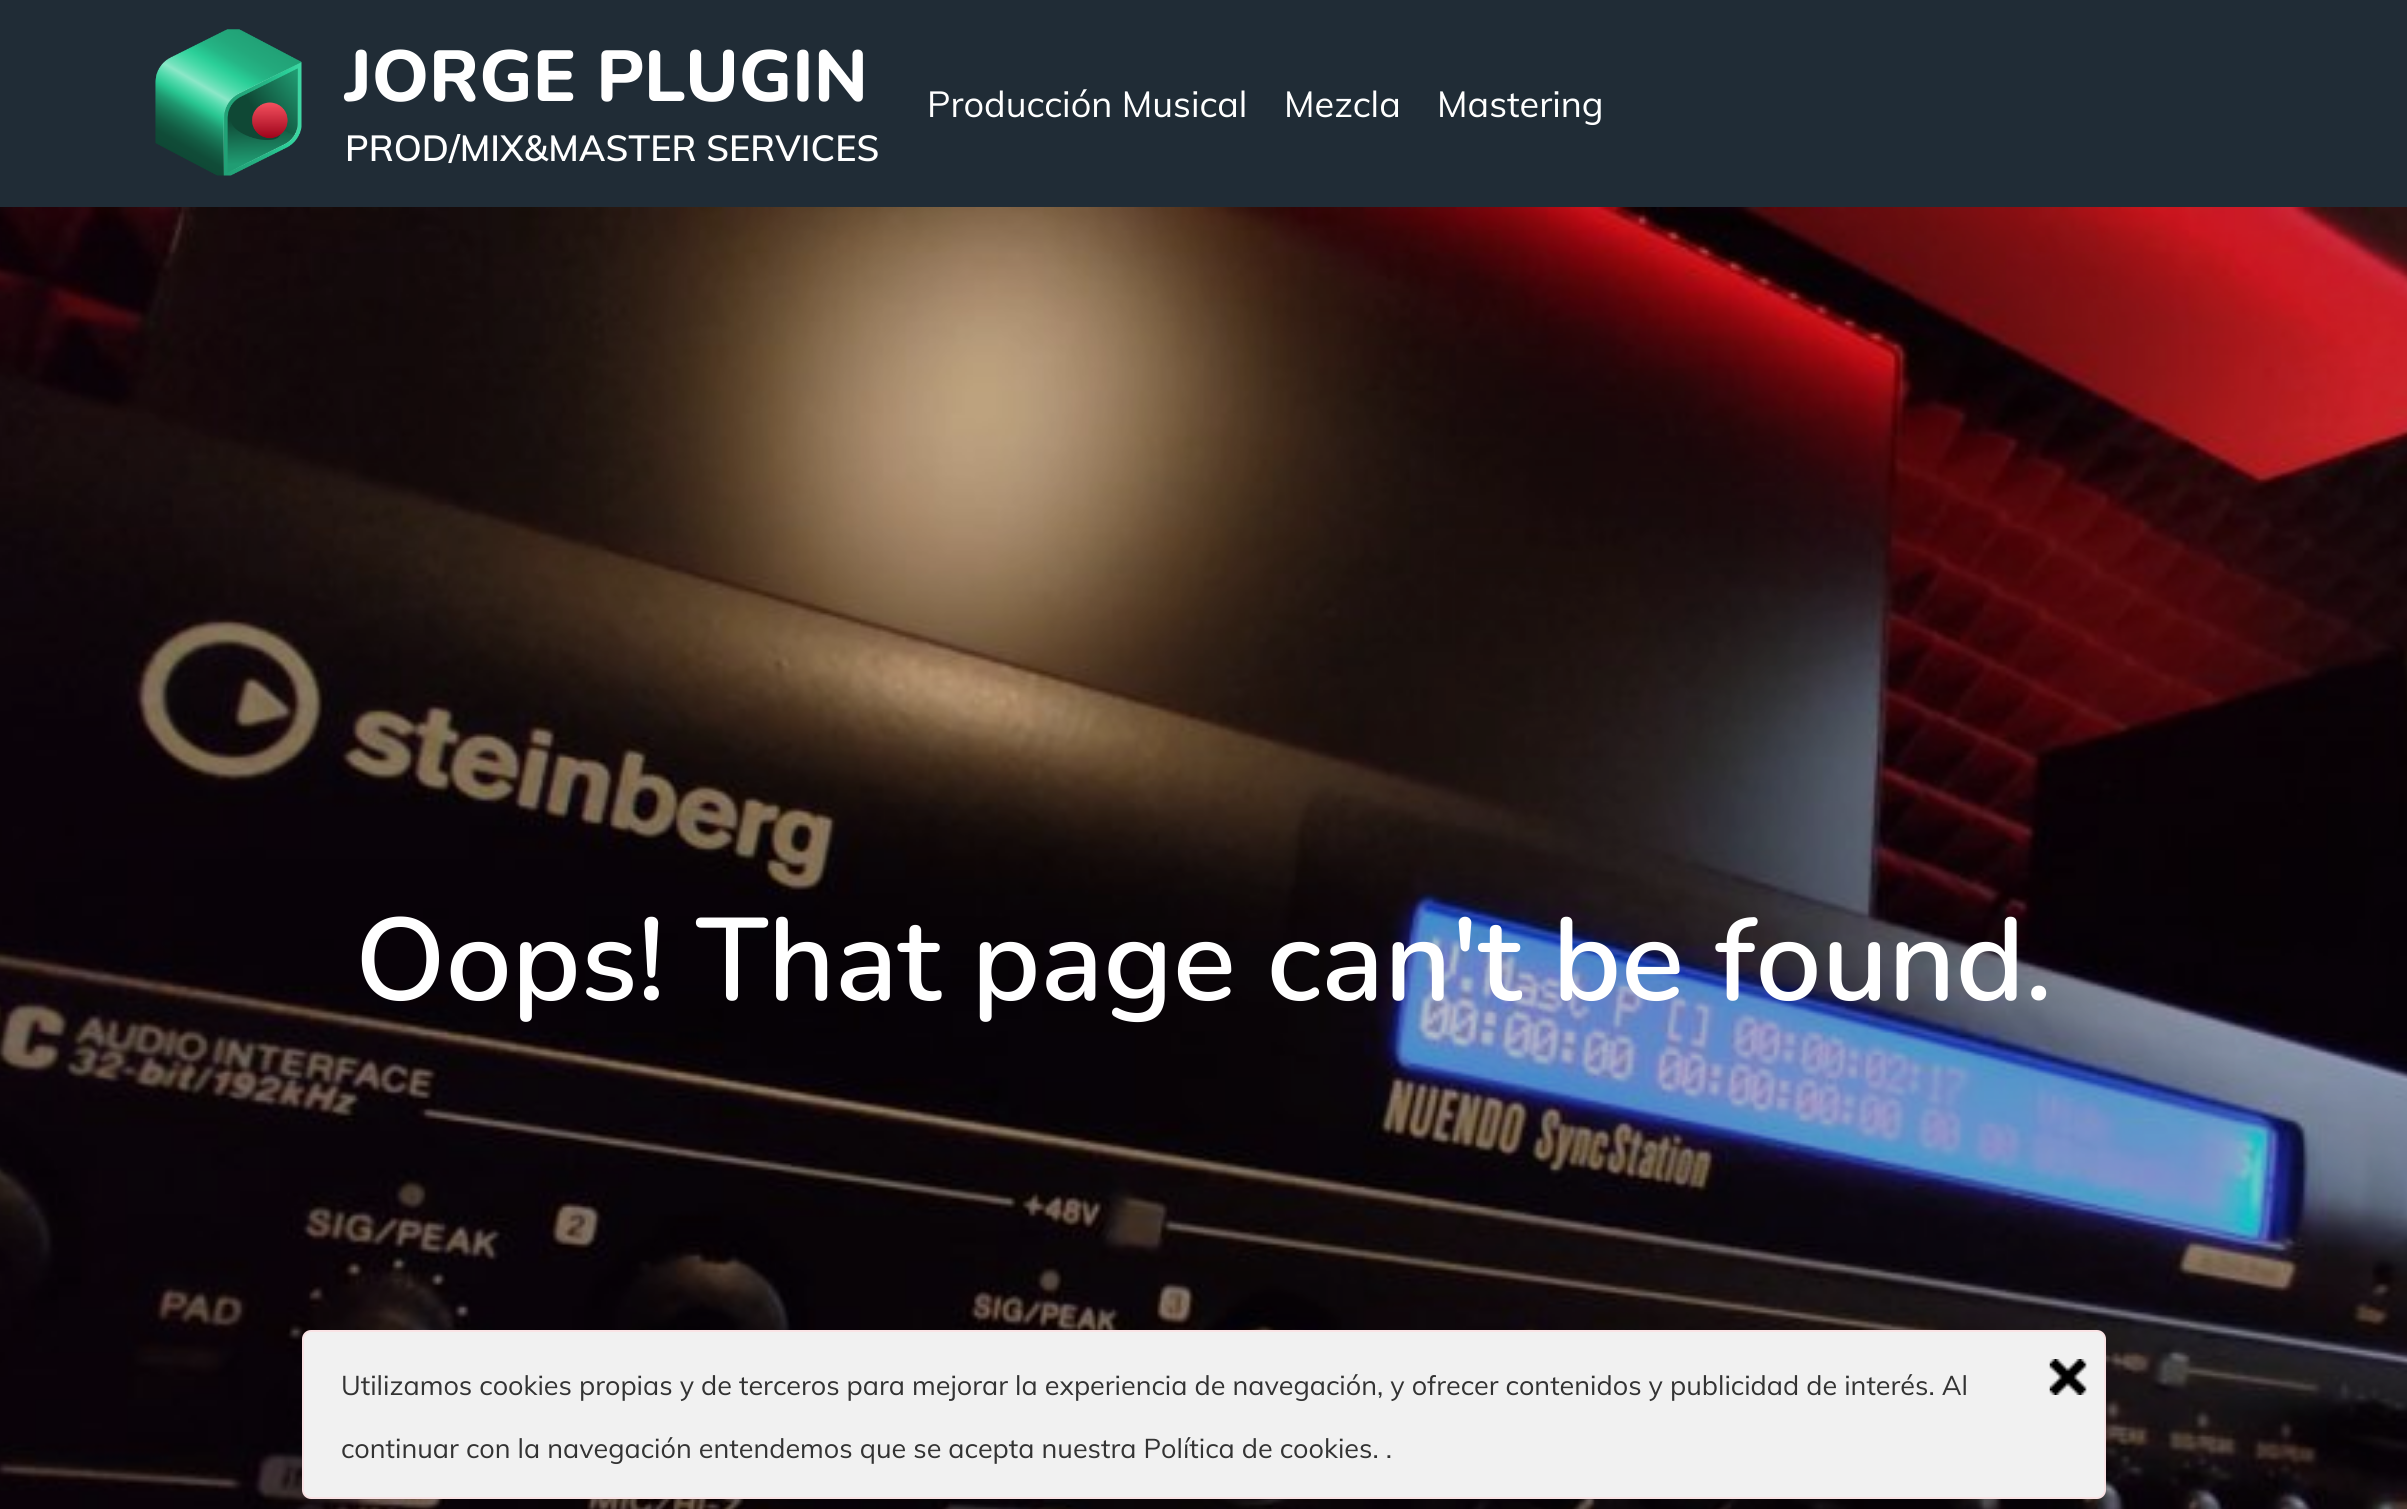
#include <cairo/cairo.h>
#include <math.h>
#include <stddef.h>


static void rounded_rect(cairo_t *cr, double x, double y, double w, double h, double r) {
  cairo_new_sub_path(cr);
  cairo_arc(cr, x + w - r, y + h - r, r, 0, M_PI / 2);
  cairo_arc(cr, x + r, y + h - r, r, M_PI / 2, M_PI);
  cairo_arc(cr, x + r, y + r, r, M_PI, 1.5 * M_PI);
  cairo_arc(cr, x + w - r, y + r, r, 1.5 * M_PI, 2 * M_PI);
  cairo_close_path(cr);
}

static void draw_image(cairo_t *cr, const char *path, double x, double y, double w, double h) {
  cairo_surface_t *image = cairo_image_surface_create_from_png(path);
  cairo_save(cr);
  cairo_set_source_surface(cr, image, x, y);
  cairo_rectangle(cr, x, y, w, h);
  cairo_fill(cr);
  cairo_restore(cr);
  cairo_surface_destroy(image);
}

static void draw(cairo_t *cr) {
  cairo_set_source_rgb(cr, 1, 1, 1);
  cairo_paint(cr);
  cairo_set_source_rgb(cr, 32 / 255.0, 44 / 255.0, 54 / 255.0);
  cairo_rectangle(cr, 0, 0, 2407, 207);
  cairo_fill(cr);
  draw_image(cr, "images/1.png", 155, 29, 147, 147);
  draw_image(cr, "images/2.png", 0, 207, 2407, 1302);
  cairo_set_source_rgb(cr, 241 / 255.0, 241 / 255.0, 241 / 255.0);
  rounded_rect(cr, 303, 1331, 1802, 167, 8);
  cairo_fill_preserve(cr);
  cairo_set_source_rgb(cr, 250 / 255.0, 227 / 255.0, 229 / 255.0);
  cairo_stroke(cr);
  draw_image(cr, "images/3.png", 2049, 1359, 38, 36);
  cairo_select_font_face(cr, "Nunito ExtraBold", CAIRO_FONT_SLANT_NORMAL, CAIRO_FONT_WEIGHT_NORMAL);
  cairo_set_font_size(cr, 72);
  cairo_set_source_rgb(cr, 1, 1, 1);
  cairo_move_to(cr, 345, 101);
  cairo_show_text(cr, "JORGE PLUGIN");
  cairo_select_font_face(cr, "Muli SemiBold", CAIRO_FONT_SLANT_NORMAL, CAIRO_FONT_WEIGHT_NORMAL);
  cairo_set_font_size(cr, 36);
  cairo_move_to(cr, 345, 161);
  cairo_show_text(cr, "PROD/MIX&MASTER SERVICES");
  cairo_select_font_face(cr, "Muli", CAIRO_FONT_SLANT_NORMAL, CAIRO_FONT_WEIGHT_NORMAL);
  cairo_move_to(cr, 927, 117);
  cairo_show_text(cr, "Producción Musical");
  cairo_move_to(cr, 1284, 117);
  cairo_show_text(cr, "Mezcla");
  cairo_move_to(cr, 1437, 117);
  cairo_show_text(cr, "Mastering");
  cairo_select_font_face(cr, "Nunito SemiBold", CAIRO_FONT_SLANT_NORMAL, CAIRO_FONT_WEIGHT_NORMAL);
  cairo_set_font_size(cr, 117);
  cairo_move_to(cr, 355, 1000);
  cairo_show_text(cr, "Oops! That page can't be found.");
  cairo_select_font_face(cr, "Muli", CAIRO_FONT_SLANT_NORMAL, CAIRO_FONT_WEIGHT_NORMAL);
  cairo_set_font_size(cr, 27);
  cairo_set_source_rgb(cr, 51 / 255.0, 51 / 255.0, 51 / 255.0);
  cairo_move_to(cr, 341, 1395);
  cairo_show_text(cr, "Utilizamos cookies propias y de terceros para mejorar la experiencia de navegación, y ofrecer contenidos y publicidad de interés. Al");
  cairo_move_to(cr, 341, 1458);
  cairo_show_text(cr, "continuar con la navegación entendemos que se acepta nuestra Política de cookies. .");
}

int main(void) {
  cairo_surface_t *surface = cairo_image_surface_create(CAIRO_FORMAT_RGB24, 2407, 1509);
  cairo_t *cr = cairo_create(surface);
  cairo_font_options_t *options = cairo_font_options_create();
  cairo_font_options_set_hint_metrics(options, CAIRO_HINT_METRICS_OFF);
  cairo_font_options_set_hint_style(options, CAIRO_HINT_STYLE_NONE);
  cairo_set_font_options(cr, options);
  cairo_set_miter_limit(cr, 4);
  draw(cr);
  cairo_surface_write_to_png(surface, "out.png");
  cairo_font_options_destroy(options);
  cairo_destroy(cr);
  cairo_surface_destroy(surface);
  return 0;
}
